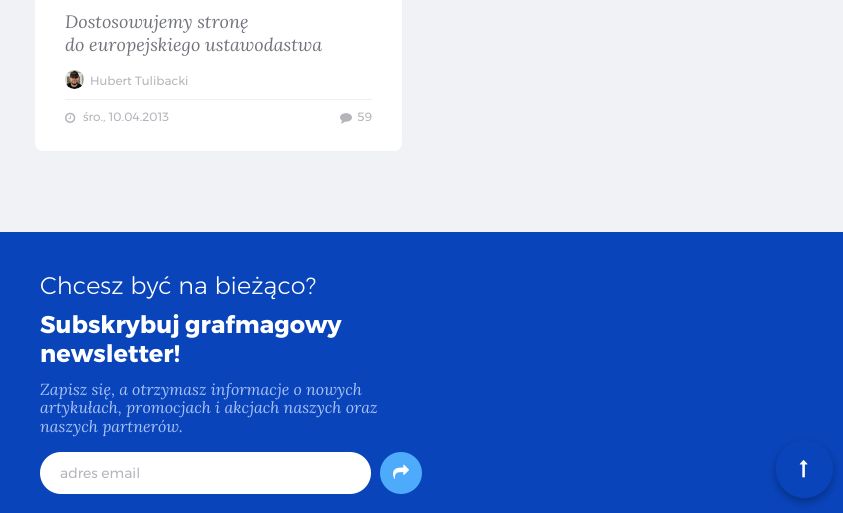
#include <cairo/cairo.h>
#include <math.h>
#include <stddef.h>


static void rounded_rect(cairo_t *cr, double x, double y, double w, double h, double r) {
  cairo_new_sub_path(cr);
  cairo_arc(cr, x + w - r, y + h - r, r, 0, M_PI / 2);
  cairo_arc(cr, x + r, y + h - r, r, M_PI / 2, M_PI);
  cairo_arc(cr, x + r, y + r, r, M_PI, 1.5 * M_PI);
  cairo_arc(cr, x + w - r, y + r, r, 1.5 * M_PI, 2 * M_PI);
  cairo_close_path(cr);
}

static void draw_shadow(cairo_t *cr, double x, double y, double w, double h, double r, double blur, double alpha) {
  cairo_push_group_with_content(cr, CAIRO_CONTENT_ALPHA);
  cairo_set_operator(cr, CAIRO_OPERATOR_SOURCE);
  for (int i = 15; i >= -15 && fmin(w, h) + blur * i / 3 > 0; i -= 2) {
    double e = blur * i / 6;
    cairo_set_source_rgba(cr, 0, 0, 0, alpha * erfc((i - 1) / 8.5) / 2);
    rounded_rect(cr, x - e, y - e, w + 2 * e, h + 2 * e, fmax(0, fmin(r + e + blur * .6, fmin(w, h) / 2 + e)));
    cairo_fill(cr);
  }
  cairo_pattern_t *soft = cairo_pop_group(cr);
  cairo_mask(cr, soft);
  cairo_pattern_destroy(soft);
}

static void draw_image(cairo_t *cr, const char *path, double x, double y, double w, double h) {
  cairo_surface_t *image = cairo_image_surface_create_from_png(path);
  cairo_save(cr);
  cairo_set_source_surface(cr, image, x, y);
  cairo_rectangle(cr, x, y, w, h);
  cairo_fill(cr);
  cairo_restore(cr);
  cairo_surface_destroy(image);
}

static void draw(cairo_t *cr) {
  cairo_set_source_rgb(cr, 9 / 255.0, 68 / 255.0, 186 / 255.0);
  cairo_paint(cr);
  cairo_set_source_rgb(cr, 240 / 255.0, 242 / 255.0, 245 / 255.0);
  cairo_rectangle(cr, 0, 0, 843, 232);
  cairo_fill(cr);
  cairo_set_source_rgb(cr, 1, 1, 1);
  rounded_rect(cr, 35, -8, 367, 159, 8);
  cairo_fill(cr);
  draw_image(cr, "images/1.png", 65, 70, 19, 19);
  cairo_set_source_rgb(cr, 240 / 255.0, 241 / 255.0, 242 / 255.0);
  cairo_rectangle(cr, 65, 99, 307, 1);
  cairo_fill(cr);
  draw_image(cr, "images/2.png", 65, 112, 11, 11);
  draw_image(cr, "images/3.png", 340, 113, 12, 11);
  cairo_set_source_rgb(cr, 1, 1, 1);
  rounded_rect(cr, 40, 452, 331, 42, 21);
  cairo_fill(cr);
  cairo_set_source_rgb(cr, 78 / 255.0, 170 / 255.0, 250 / 255.0);
  cairo_arc(cr, 401, 473, 21, 0, 2 * M_PI);
  cairo_fill(cr);
  draw_image(cr, "images/4.png", 393, 464, 16, 15);
  cairo_set_source_rgb(cr, 1 / 255.0, 5 / 255.0, 13 / 255.0);
  draw_shadow(cr, 776, 444, 57, 58, 28.5, 4, 0.3);
  cairo_set_source_rgb(cr, 9 / 255.0, 68 / 255.0, 186 / 255.0);
  rounded_rect(cr, 776, 440, 57, 58, 28.5);
  cairo_fill(cr);
  draw_image(cr, "images/5.png", 799, 460, 9, 18);
  cairo_select_font_face(cr, "Lora", CAIRO_FONT_SLANT_ITALIC, CAIRO_FONT_WEIGHT_NORMAL);
  cairo_set_font_size(cr, 18);
  cairo_set_source_rgb(cr, 112 / 255.0, 115 / 255.0, 122 / 255.0);
  cairo_move_to(cr, 65, 28);
  cairo_show_text(cr, "Dostosowujemy stronę");
  cairo_move_to(cr, 65, 51);
  cairo_show_text(cr, "do europejskiego ustawodastwa");
  cairo_select_font_face(cr, "Montserrat", CAIRO_FONT_SLANT_NORMAL, CAIRO_FONT_WEIGHT_NORMAL);
  cairo_set_font_size(cr, 12);
  cairo_set_source_rgb(cr, 179 / 255.0, 181 / 255.0, 187 / 255.0);
  cairo_move_to(cr, 90, 85);
  cairo_show_text(cr, "Hubert Tulibacki");
  cairo_move_to(cr, 83, 121);
  cairo_show_text(cr, "śro., 10.04.2013");
  cairo_move_to(cr, 357, 121);
  cairo_show_text(cr, "59");
  cairo_select_font_face(cr, "Montserrat Light", CAIRO_FONT_SLANT_NORMAL, CAIRO_FONT_WEIGHT_NORMAL);
  cairo_set_font_size(cr, 24);
  cairo_set_source_rgb(cr, 1, 1, 1);
  cairo_move_to(cr, 40, 294);
  cairo_show_text(cr, "Chcesz być na bieżąco?");
  cairo_select_font_face(cr, "Montserrat", CAIRO_FONT_SLANT_NORMAL, CAIRO_FONT_WEIGHT_BOLD);
  cairo_move_to(cr, 40, 333);
  cairo_show_text(cr, "Subskrybuj grafmagowy");
  cairo_move_to(cr, 40, 362);
  cairo_show_text(cr, "newsletter!");
  cairo_select_font_face(cr, "Lora", CAIRO_FONT_SLANT_ITALIC, CAIRO_FONT_WEIGHT_NORMAL);
  cairo_set_font_size(cr, 16);
  cairo_set_source_rgb(cr, 169 / 255.0, 194 / 255.0, 245 / 255.0);
  cairo_move_to(cr, 40, 395);
  cairo_show_text(cr, "Zapisz się, a otrzymasz informacje o nowych");
  cairo_move_to(cr, 40, 413);
  cairo_show_text(cr, "artykułach, promocjach i akcjach naszych oraz");
  cairo_move_to(cr, 40, 432);
  cairo_show_text(cr, "naszych partnerów.");
  cairo_select_font_face(cr, "Montserrat", CAIRO_FONT_SLANT_NORMAL, CAIRO_FONT_WEIGHT_NORMAL);
  cairo_set_font_size(cr, 14);
  cairo_set_source_rgb(cr, 179 / 255.0, 181 / 255.0, 187 / 255.0);
  cairo_move_to(cr, 60, 478);
  cairo_show_text(cr, "adres email");
}

int main(void) {
  cairo_surface_t *surface = cairo_image_surface_create(CAIRO_FORMAT_RGB24, 843, 513);
  cairo_t *cr = cairo_create(surface);
  cairo_font_options_t *options = cairo_font_options_create();
  cairo_font_options_set_hint_metrics(options, CAIRO_HINT_METRICS_OFF);
  cairo_font_options_set_hint_style(options, CAIRO_HINT_STYLE_NONE);
  cairo_set_font_options(cr, options);
  cairo_set_miter_limit(cr, 4);
  draw(cr);
  cairo_surface_write_to_png(surface, "out.png");
  cairo_font_options_destroy(options);
  cairo_destroy(cr);
  cairo_surface_destroy(surface);
  return 0;
}
